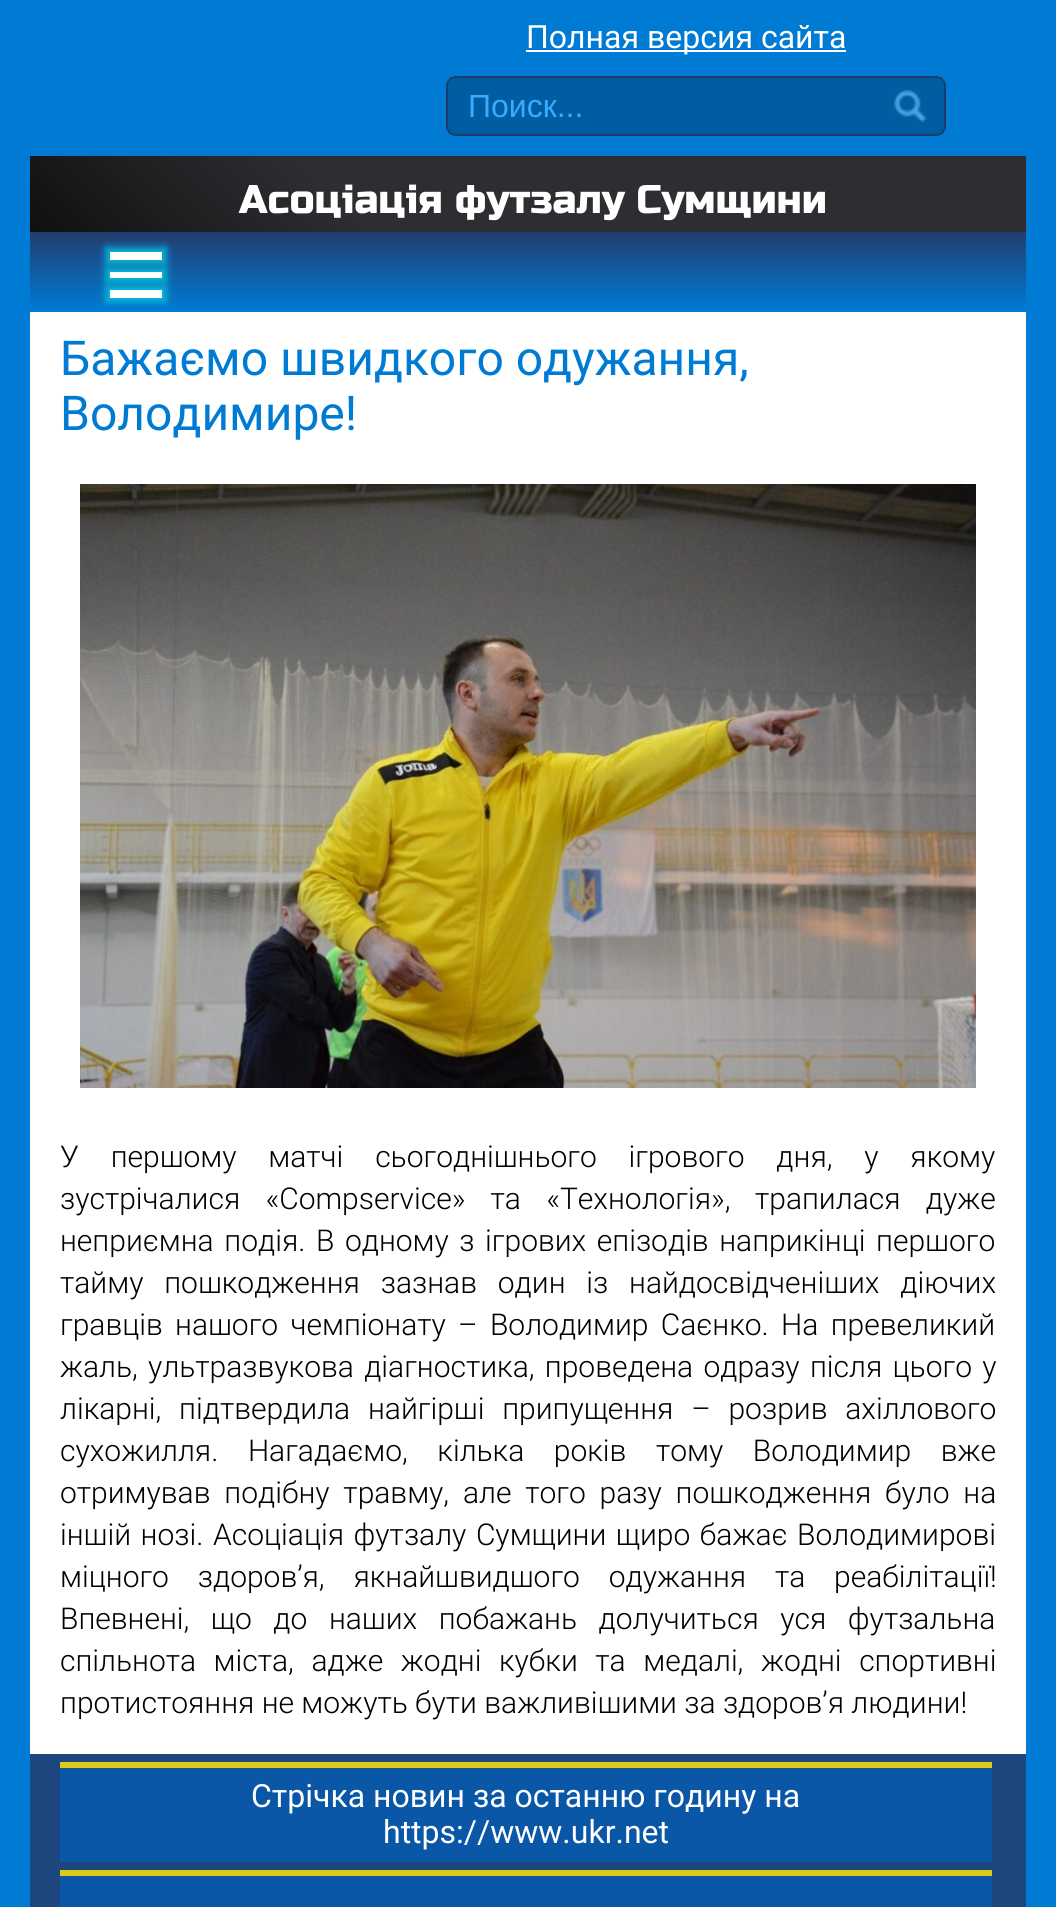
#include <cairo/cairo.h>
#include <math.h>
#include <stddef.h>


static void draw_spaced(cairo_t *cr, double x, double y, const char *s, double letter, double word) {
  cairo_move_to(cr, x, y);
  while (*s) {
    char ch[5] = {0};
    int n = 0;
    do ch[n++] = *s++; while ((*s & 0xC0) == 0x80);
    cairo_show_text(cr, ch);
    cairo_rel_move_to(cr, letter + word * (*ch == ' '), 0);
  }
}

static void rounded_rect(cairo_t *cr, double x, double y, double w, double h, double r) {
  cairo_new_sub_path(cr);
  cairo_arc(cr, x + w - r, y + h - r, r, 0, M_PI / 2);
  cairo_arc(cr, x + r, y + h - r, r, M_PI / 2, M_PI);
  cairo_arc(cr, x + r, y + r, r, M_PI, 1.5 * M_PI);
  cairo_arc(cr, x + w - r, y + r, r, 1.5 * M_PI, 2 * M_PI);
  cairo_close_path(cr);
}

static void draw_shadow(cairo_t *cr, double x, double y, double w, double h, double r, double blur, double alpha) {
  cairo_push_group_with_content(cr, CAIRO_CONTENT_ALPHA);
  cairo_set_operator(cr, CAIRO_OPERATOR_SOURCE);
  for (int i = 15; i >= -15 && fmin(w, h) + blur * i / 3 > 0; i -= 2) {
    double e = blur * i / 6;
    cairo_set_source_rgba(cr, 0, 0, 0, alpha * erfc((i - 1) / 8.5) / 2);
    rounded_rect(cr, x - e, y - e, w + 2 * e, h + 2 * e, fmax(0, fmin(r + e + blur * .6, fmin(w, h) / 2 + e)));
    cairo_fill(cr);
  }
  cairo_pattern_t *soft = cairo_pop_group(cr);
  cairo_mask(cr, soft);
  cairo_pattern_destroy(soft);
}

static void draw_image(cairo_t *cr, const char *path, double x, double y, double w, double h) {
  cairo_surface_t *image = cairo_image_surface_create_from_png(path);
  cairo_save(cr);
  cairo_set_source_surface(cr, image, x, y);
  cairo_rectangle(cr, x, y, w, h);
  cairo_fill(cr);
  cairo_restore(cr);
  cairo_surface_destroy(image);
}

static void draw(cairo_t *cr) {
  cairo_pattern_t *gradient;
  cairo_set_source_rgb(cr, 0, 123 / 255.0, 212 / 255.0);
  cairo_paint(cr);
  cairo_set_source_rgb(cr, 1, 1, 1);
  cairo_rectangle(cr, 526, 50, 320, 2);
  cairo_fill(cr);
  cairo_set_source_rgb(cr, 0, 93 / 255.0, 161 / 255.0);
  rounded_rect(cr, 447, 77, 498, 58, 9);
  cairo_fill_preserve(cr);
  cairo_set_source_rgb(cr, 30 / 255.0, 58 / 255.0, 105 / 255.0);
  cairo_stroke(cr);
  draw_image(cr, "images/1.png", 894, 90, 32, 32);
  gradient = cairo_pattern_create_linear(243, 445, 814, -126);
  cairo_pattern_add_color_stop_rgba(gradient, 0, 16 / 255.0, 16 / 255.0, 16 / 255.0, 1);
  cairo_pattern_add_color_stop_rgba(gradient, 0.3, 47 / 255.0, 45 / 255.0, 50 / 255.0, 1);
  cairo_set_source(cr, gradient);
  cairo_pattern_destroy(gradient);
  cairo_rectangle(cr, 30, 156, 996, 76);
  cairo_fill(cr);
  gradient = cairo_pattern_create_linear(528, 312, 528, 232);
  cairo_pattern_add_color_stop_rgba(gradient, 0, 0, 123 / 255.0, 213 / 255.0, 1);
  cairo_pattern_add_color_stop_rgba(gradient, 1, 34 / 255.0, 61 / 255.0, 111 / 255.0, 1);
  cairo_set_source(cr, gradient);
  cairo_pattern_destroy(gradient);
  cairo_rectangle(cr, 30, 232, 996, 77);
  cairo_fill(cr);
  cairo_set_source_rgb(cr, 1 / 255.0, 192 / 255.0, 221 / 255.0);
  draw_shadow(cr, 106, 268, 60, 14, 0, 4, 1);
  cairo_set_source_rgb(cr, 1, 1, 1);
  cairo_rectangle(cr, 110, 272, 52, 6);
  cairo_fill(cr);
  cairo_set_source_rgb(cr, 1 / 255.0, 192 / 255.0, 221 / 255.0);
  draw_shadow(cr, 106, 248, 60, 16, 0, 4, 1);
  cairo_set_source_rgb(cr, 1, 1, 1);
  cairo_rectangle(cr, 110, 252, 52, 8);
  cairo_fill(cr);
  cairo_set_source_rgb(cr, 1 / 255.0, 192 / 255.0, 221 / 255.0);
  draw_shadow(cr, 106, 286, 60, 16, 0, 4, 1);
  cairo_set_source_rgb(cr, 1, 1, 1);
  cairo_rectangle(cr, 110, 290, 52, 8);
  cairo_fill(cr);
  cairo_rectangle(cr, 30, 312, 996, 1442);
  cairo_fill(cr);
  draw_image(cr, "images/2.png", 80, 484, 896, 604);
  cairo_set_source_rgb(cr, 29 / 255.0, 70 / 255.0, 126 / 255.0);
  cairo_rectangle(cr, 30, 1754, 996, 153);
  cairo_fill(cr);
  cairo_set_source_rgb(cr, 10 / 255.0, 86 / 255.0, 167 / 255.0);
  cairo_rectangle(cr, 60, 1768, 932, 94);
  cairo_fill(cr);
  cairo_set_source_rgb(cr, 218 / 255.0, 204 / 255.0, 25 / 255.0);
  cairo_rectangle(cr, 60, 1762, 932, 6);
  cairo_fill(cr);
  cairo_set_source_rgb(cr, 10 / 255.0, 86 / 255.0, 167 / 255.0);
  cairo_rectangle(cr, 60, 1876, 932, 31);
  cairo_fill(cr);
  cairo_set_source_rgb(cr, 218 / 255.0, 204 / 255.0, 25 / 255.0);
  cairo_rectangle(cr, 60, 1870, 932, 6);
  cairo_fill(cr);
  cairo_select_font_face(cr, "Roboto", CAIRO_FONT_SLANT_NORMAL, CAIRO_FONT_WEIGHT_NORMAL);
  cairo_set_font_size(cr, 32);
  cairo_set_source_rgb(cr, 1, 1, 1);
  cairo_move_to(cr, 526, 48);
  cairo_show_text(cr, "Полная версия сайта");
  cairo_select_font_face(cr, "Liberation Sans", CAIRO_FONT_SLANT_NORMAL, CAIRO_FONT_WEIGHT_NORMAL);
  cairo_set_source_rgb(cr, 56 / 255.0, 171 / 255.0, 1);
  cairo_move_to(cr, 468, 117);
  cairo_show_text(cr, "Поиск...");
  cairo_select_font_face(cr, "Russo One", CAIRO_FONT_SLANT_NORMAL, CAIRO_FONT_WEIGHT_NORMAL);
  cairo_set_font_size(cr, 40);
  cairo_set_source_rgb(cr, 1, 1, 1);
  cairo_move_to(cr, 239, 213);
  cairo_show_text(cr, "Асоціація футзалу Сумщини");
  cairo_select_font_face(cr, "Roboto", CAIRO_FONT_SLANT_NORMAL, CAIRO_FONT_WEIGHT_NORMAL);
  cairo_set_font_size(cr, 48);
  cairo_set_source_rgb(cr, 0, 123 / 255.0, 212 / 255.0);
  cairo_move_to(cr, 60, 375);
  cairo_show_text(cr, "Бажаємо швидкого одужання,");
  cairo_move_to(cr, 60, 430);
  cairo_show_text(cr, "Володимире!");
  cairo_select_font_face(cr, "Roboto Light", CAIRO_FONT_SLANT_NORMAL, CAIRO_FONT_WEIGHT_NORMAL);
  cairo_set_font_size(cr, 30);
  cairo_set_source_rgb(cr, 0, 0, 0);
  draw_spaced(cr, 60, 1167, "У першому матчі сьогоднішнього ігрового дня, у якому", 0, 24.5);
  draw_spaced(cr, 60, 1209, "зустрічалися «Compservice» та «Технологія»,", 0, 18);
  draw_spaced(cr, 755, 1209, "трапилася дуже", 0, 18);
  draw_spaced(cr, 60, 1251, "неприємна подія. В одному з ігрових епізодів наприкінці першого", 0, 3.25);
  draw_spaced(cr, 60, 1293, "тайму пошкодження зазнав один із найдосвідченіших діючих", 0, 13.5);
  draw_spaced(cr, 60, 1335, "гравців нашого чемпіонату – Володимир Саєнко. На превеликий", 0, 5);
  draw_spaced(cr, 60, 1377, "жаль, ультразвукова діагностика, проведена одразу після цього у", 0, 3);
  draw_spaced(cr, 60, 1419, "лікарні, підтвердила найгірші припущення – розрив ахіллового", 0, 10.5);
  draw_spaced(cr, 60, 1461, "сухожилля. Нагадаємо, кілька років тому Володимир вже", 0, 22.25);
  draw_spaced(cr, 60, 1503, "отримував подібну травму, але того разу пошкодження було на", 0, 6.5);
  draw_spaced(cr, 60, 1545, "іншій нозі. Асоціація футзалу Сумщини щиро бажає Володимирові", 0, 2.25);
  draw_spaced(cr, 60, 1587, "міцного здоров’я, якнайшвидшого одужання та реабілітації!", 0, 21.5);
  draw_spaced(cr, 60, 1629, "Впевнені, що до наших побажань долучиться уся футзальна", 0, 14.25);
  draw_spaced(cr, 60, 1671, "спільнота міста, адже жодні кубки та медалі, жодні спортивні", 0, 10.25);
  cairo_move_to(cr, 60, 1713);
  cairo_show_text(cr, "протистояння не можуть бути важливішими за здоров’я людини!");
  cairo_select_font_face(cr, "Roboto", CAIRO_FONT_SLANT_NORMAL, CAIRO_FONT_WEIGHT_NORMAL);
  cairo_set_font_size(cr, 32);
  cairo_set_source_rgb(cr, 1, 1, 1);
  cairo_move_to(cr, 251, 1807);
  cairo_show_text(cr, "Стрічка новин за останню годину на");
  cairo_move_to(cr, 383, 1843);
  cairo_show_text(cr, "https://www.ukr.net");
}

int main(void) {
  cairo_surface_t *surface = cairo_image_surface_create(CAIRO_FORMAT_RGB24, 1056, 1907);
  cairo_t *cr = cairo_create(surface);
  cairo_font_options_t *options = cairo_font_options_create();
  cairo_font_options_set_hint_metrics(options, CAIRO_HINT_METRICS_OFF);
  cairo_font_options_set_hint_style(options, CAIRO_HINT_STYLE_NONE);
  cairo_set_font_options(cr, options);
  cairo_set_miter_limit(cr, 4);
  draw(cr);
  cairo_surface_write_to_png(surface, "out.png");
  cairo_font_options_destroy(options);
  cairo_destroy(cr);
  cairo_surface_destroy(surface);
  return 0;
}
